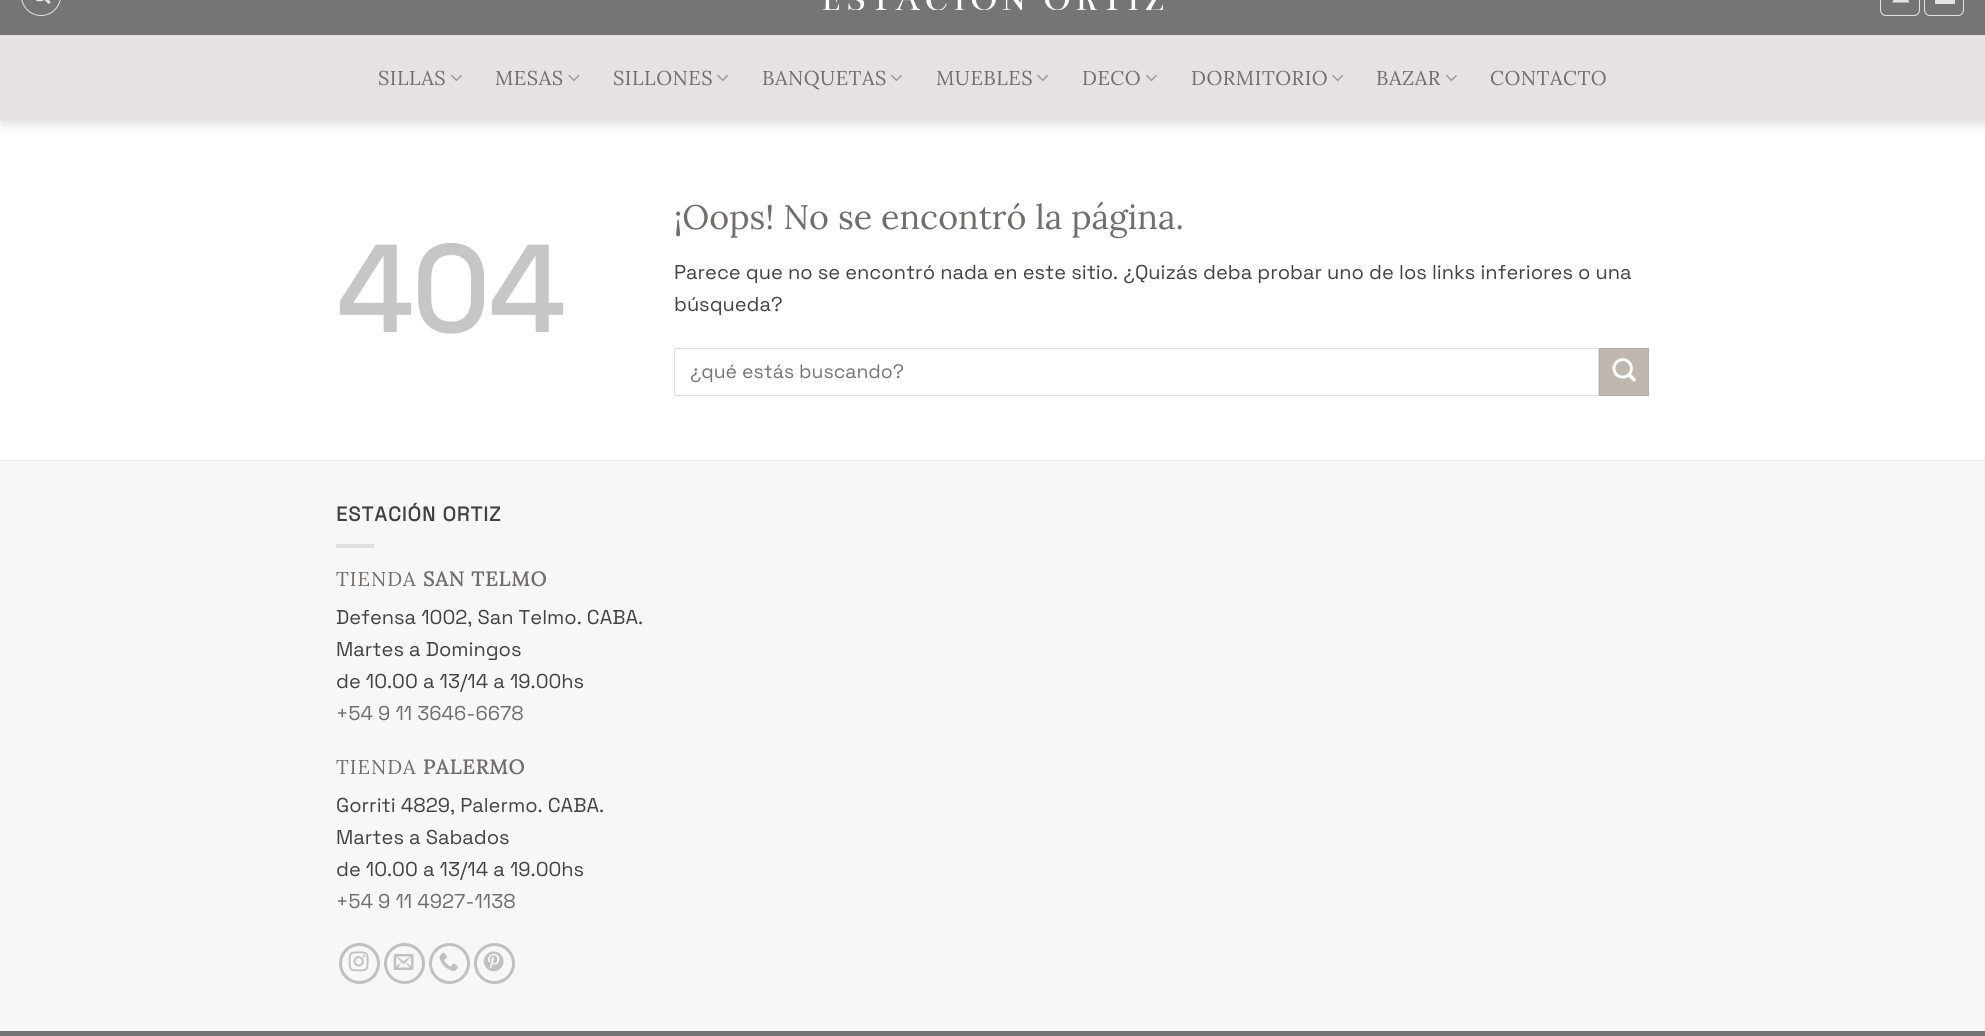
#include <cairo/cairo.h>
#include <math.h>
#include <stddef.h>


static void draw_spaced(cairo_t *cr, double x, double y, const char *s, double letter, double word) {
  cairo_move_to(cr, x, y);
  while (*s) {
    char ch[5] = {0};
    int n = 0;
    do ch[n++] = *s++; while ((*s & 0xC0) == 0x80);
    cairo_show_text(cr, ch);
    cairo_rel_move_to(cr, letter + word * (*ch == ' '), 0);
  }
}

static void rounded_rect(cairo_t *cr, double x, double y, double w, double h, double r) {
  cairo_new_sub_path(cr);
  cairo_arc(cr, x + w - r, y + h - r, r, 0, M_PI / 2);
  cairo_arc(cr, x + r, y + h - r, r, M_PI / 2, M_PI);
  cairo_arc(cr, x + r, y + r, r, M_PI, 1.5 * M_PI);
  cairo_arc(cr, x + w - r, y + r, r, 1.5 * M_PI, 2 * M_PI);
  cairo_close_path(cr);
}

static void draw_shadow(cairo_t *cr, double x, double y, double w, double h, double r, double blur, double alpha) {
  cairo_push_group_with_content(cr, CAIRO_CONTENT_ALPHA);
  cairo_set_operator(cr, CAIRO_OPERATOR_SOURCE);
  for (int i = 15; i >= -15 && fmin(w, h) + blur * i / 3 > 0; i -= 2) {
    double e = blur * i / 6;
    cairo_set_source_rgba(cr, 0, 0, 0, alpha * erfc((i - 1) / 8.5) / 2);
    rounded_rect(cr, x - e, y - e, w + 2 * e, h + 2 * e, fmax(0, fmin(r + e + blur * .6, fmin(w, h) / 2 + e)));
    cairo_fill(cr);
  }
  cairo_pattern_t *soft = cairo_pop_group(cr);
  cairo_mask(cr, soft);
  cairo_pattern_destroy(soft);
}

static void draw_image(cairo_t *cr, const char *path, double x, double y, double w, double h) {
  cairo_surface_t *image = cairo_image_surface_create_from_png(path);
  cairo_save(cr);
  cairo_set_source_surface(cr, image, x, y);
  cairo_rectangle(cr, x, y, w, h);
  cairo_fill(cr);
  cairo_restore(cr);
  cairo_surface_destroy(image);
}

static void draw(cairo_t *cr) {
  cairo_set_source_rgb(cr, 1, 1, 1);
  cairo_paint(cr);
  cairo_set_source_rgb(cr, 0, 0, 0);
  draw_shadow(cr, 1, -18, 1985, 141, 0, 6, 0.15);
  cairo_set_source_rgb(cr, 117 / 255.0, 117 / 255.0, 117 / 255.0);
  cairo_rectangle(cr, 0, 0, 1985, 35);
  cairo_fill(cr);
  rounded_rect(cr, 21.5, -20.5, 39, 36, 19.5);
  cairo_set_source_rgb(cr, 227 / 255.0, 227 / 255.0, 227 / 255.0);
  cairo_set_line_width(cr, 1);
  cairo_stroke(cr);
  draw_image(cr, "images/1.png", 35, 0, 16, 4);
  draw_image(cr, "images/2.png", 823, 0, 340, 10);
  rounded_rect(cr, 1880.5, -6.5, 39, 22, 5.5);
  cairo_stroke(cr);
  draw_image(cr, "images/3.png", 1892, 0, 18, 3);
  rounded_rect(cr, 1924.5, -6.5, 39, 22, 5.5);
  cairo_stroke(cr);
  cairo_rectangle(cr, 1935, 0, 20, 4);
  cairo_fill(cr);
  cairo_set_source_rgb(cr, 230 / 255.0, 226 / 255.0, 225 / 255.0);
  cairo_rectangle(cr, 0, 35, 1985, 86);
  cairo_fill(cr);
  draw_image(cr, "images/4.png", 451, 74, 11, 8);
  draw_image(cr, "images/5.png", 568, 74, 12, 8);
  draw_image(cr, "images/6.png", 717, 74, 12, 8);
  draw_image(cr, "images/4.png", 891, 74, 11, 8);
  draw_image(cr, "images/6.png", 1037, 74, 12, 8);
  draw_image(cr, "images/4.png", 1146, 74, 11, 8);
  draw_image(cr, "images/6.png", 1332, 74, 12, 8);
  draw_image(cr, "images/4.png", 1446, 74, 11, 8);
  cairo_rectangle(cr, 674.5, 348.5, 924, 47);
  cairo_set_source_rgb(cr, 221 / 255.0, 221 / 255.0, 221 / 255.0);
  cairo_stroke(cr);
  cairo_set_source_rgb(cr, 191 / 255.0, 184 / 255.0, 176 / 255.0);
  cairo_rectangle(cr, 1599.5, 348.5, 49, 47);
  cairo_fill_preserve(cr);
  cairo_set_source_rgb(cr, 181 / 255.0, 175 / 255.0, 167 / 255.0);
  cairo_stroke(cr);
  draw_image(cr, "images/7.png", 1612, 358, 24, 24);
  cairo_set_source_rgb(cr, 247 / 255.0, 247 / 255.0, 247 / 255.0);
  cairo_rectangle(cr, 0, 461, 1985, 570);
  cairo_fill(cr);
  cairo_set_source_rgb(cr, 235 / 255.0, 235 / 255.0, 235 / 255.0);
  cairo_rectangle(cr, 0, 460, 1985, 1);
  cairo_fill(cr);
  cairo_set_source_rgb(cr, 222 / 255.0, 222 / 255.0, 222 / 255.0);
  cairo_rectangle(cr, 336, 544, 38, 4);
  cairo_fill(cr);
  cairo_arc(cr, 359.5, 963.5, 19, 0, 2 * M_PI);
  cairo_set_source_rgb(cr, 192 / 255.0, 192 / 255.0, 192 / 255.0);
  cairo_set_line_width(cr, 3);
  cairo_stroke(cr);
  draw_image(cr, "images/8.png", 348, 951, 21, 21);
  cairo_arc(cr, 404.5, 963.5, 19, 0, 2 * M_PI);
  cairo_stroke(cr);
  draw_image(cr, "images/9.png", 393, 954, 21, 16);
  cairo_arc(cr, 449.5, 963.5, 19, 0, 2 * M_PI);
  cairo_stroke(cr);
  draw_image(cr, "images/10.png", 439, 952, 19, 20);
  cairo_arc(cr, 494.5, 963.5, 19, 0, 2 * M_PI);
  cairo_stroke(cr);
  draw_image(cr, "images/11.png", 483, 951, 21, 21);
  cairo_set_source_rgb(cr, 117 / 255.0, 117 / 255.0, 117 / 255.0);
  cairo_rectangle(cr, 0, 1031, 1985, 5);
  cairo_fill(cr);
  cairo_select_font_face(cr, "Lora", CAIRO_FONT_SLANT_NORMAL, CAIRO_FONT_WEIGHT_NORMAL);
  cairo_set_font_size(cr, 20);
  cairo_set_source_rgb(cr, 114 / 255.0, 109 / 255.0, 105 / 255.0);
  draw_spaced(cr, 378, 85, "SILLAS", 0.5, 0);
  draw_spaced(cr, 495, 85, "MESAS", 0.5, 0);
  draw_spaced(cr, 613, 85, "SILLONES", 0.5, 0);
  draw_spaced(cr, 762, 85, "BANQUETAS", 0.5, 0);
  draw_spaced(cr, 936, 85, "MUEBLES", 0.5, 0);
  draw_spaced(cr, 1082, 85, "DECO", 0.5, 0);
  draw_spaced(cr, 1191, 85, "DORMITORIO", 0.5, 0);
  draw_spaced(cr, 1376, 85, "BAZAR", 0.5, 0);
  draw_spaced(cr, 1490, 85, "CONTACTO", 0.5, 0);
  cairo_select_font_face(cr, "Space Grotesk", CAIRO_FONT_SLANT_NORMAL, CAIRO_FONT_WEIGHT_BOLD);
  cairo_set_font_size(cr, 120);
  cairo_set_source_rgb(cr, 198 / 255.0, 198 / 255.0, 199 / 255.0);
  cairo_move_to(cr, 336, 332);
  cairo_show_text(cr, "404");
  cairo_select_font_face(cr, "Lora", CAIRO_FONT_SLANT_NORMAL, CAIRO_FONT_WEIGHT_NORMAL);
  cairo_set_font_size(cr, 34);
  cairo_set_source_rgb(cr, 114 / 255.0, 109 / 255.0, 105 / 255.0);
  cairo_move_to(cr, 674, 229);
  cairo_show_text(cr, "¡Oops! No se encontró la página.");
  cairo_select_font_face(cr, "Space Grotesk Light", CAIRO_FONT_SLANT_NORMAL, CAIRO_FONT_WEIGHT_NORMAL);
  cairo_set_font_size(cr, 20);
  cairo_set_source_rgb(cr, 65 / 255.0, 66 / 255.0, 69 / 255.0);
  cairo_move_to(cr, 674, 279);
  cairo_show_text(cr, "Parece que no se encontró nada en este sitio. ¿Quizás deba probar uno de los links inferiores o una");
  cairo_move_to(cr, 674, 311);
  cairo_show_text(cr, "búsqueda?");
  cairo_set_font_size(cr, 19.4);
  cairo_set_source_rgb(cr, 117 / 255.0, 117 / 255.0, 117 / 255.0);
  cairo_move_to(cr, 690, 378);
  cairo_show_text(cr, "¿qué estás buscando?");
  cairo_select_font_face(cr, "Space Grotesk", CAIRO_FONT_SLANT_NORMAL, CAIRO_FONT_WEIGHT_BOLD);
  cairo_set_font_size(cr, 20);
  cairo_set_source_rgb(cr, 65 / 255.0, 66 / 255.0, 69 / 255.0);
  draw_spaced(cr, 336, 521, "ESTACIÓN ORTIZ", 1, 0);
  cairo_select_font_face(cr, "Lora", CAIRO_FONT_SLANT_NORMAL, CAIRO_FONT_WEIGHT_NORMAL);
  cairo_set_source_rgb(cr, 114 / 255.0, 109 / 255.0, 105 / 255.0);
  draw_spaced(cr, 336, 586, "TIENDA", 1, 0);
  cairo_select_font_face(cr, "Lora", CAIRO_FONT_SLANT_NORMAL, CAIRO_FONT_WEIGHT_BOLD);
  draw_spaced(cr, 423, 586, "SAN TELMO", 1, 0);
  cairo_select_font_face(cr, "Space Grotesk Light", CAIRO_FONT_SLANT_NORMAL, CAIRO_FONT_WEIGHT_NORMAL);
  cairo_set_source_rgb(cr, 65 / 255.0, 66 / 255.0, 69 / 255.0);
  cairo_move_to(cr, 336, 624);
  cairo_show_text(cr, "Defensa 1002, San Telmo. CABA.");
  cairo_move_to(cr, 336, 656);
  cairo_show_text(cr, "Martes a Domingos");
  cairo_move_to(cr, 336, 688);
  cairo_show_text(cr, "de 10.00 a 13/14 a 19.00hs");
  cairo_set_source_rgb(cr, 114 / 255.0, 109 / 255.0, 105 / 255.0);
  cairo_move_to(cr, 336, 720);
  cairo_show_text(cr, "+54 9 11 3646-6678");
  cairo_select_font_face(cr, "Lora", CAIRO_FONT_SLANT_NORMAL, CAIRO_FONT_WEIGHT_NORMAL);
  draw_spaced(cr, 336, 774, "TIENDA", 1, 0);
  cairo_select_font_face(cr, "Lora", CAIRO_FONT_SLANT_NORMAL, CAIRO_FONT_WEIGHT_BOLD);
  draw_spaced(cr, 423, 774, "PALERMO", 1, 0);
  cairo_select_font_face(cr, "Space Grotesk Light", CAIRO_FONT_SLANT_NORMAL, CAIRO_FONT_WEIGHT_NORMAL);
  cairo_set_source_rgb(cr, 65 / 255.0, 66 / 255.0, 69 / 255.0);
  cairo_move_to(cr, 336, 812);
  cairo_show_text(cr, "Gorriti 4829, Palermo. CABA.");
  cairo_move_to(cr, 336, 844);
  cairo_show_text(cr, "Martes a Sabados");
  cairo_move_to(cr, 336, 876);
  cairo_show_text(cr, "de 10.00 a 13/14 a 19.00hs");
  cairo_set_source_rgb(cr, 114 / 255.0, 109 / 255.0, 105 / 255.0);
  cairo_move_to(cr, 336, 908);
  cairo_show_text(cr, "+54 9 11 4927-1138");
}

int main(void) {
  cairo_surface_t *surface = cairo_image_surface_create(CAIRO_FORMAT_RGB24, 1985, 1036);
  cairo_t *cr = cairo_create(surface);
  cairo_font_options_t *options = cairo_font_options_create();
  cairo_font_options_set_hint_metrics(options, CAIRO_HINT_METRICS_OFF);
  cairo_font_options_set_hint_style(options, CAIRO_HINT_STYLE_NONE);
  cairo_set_font_options(cr, options);
  cairo_set_miter_limit(cr, 4);
  draw(cr);
  cairo_surface_write_to_png(surface, "out.png");
  cairo_font_options_destroy(options);
  cairo_destroy(cr);
  cairo_surface_destroy(surface);
  return 0;
}
